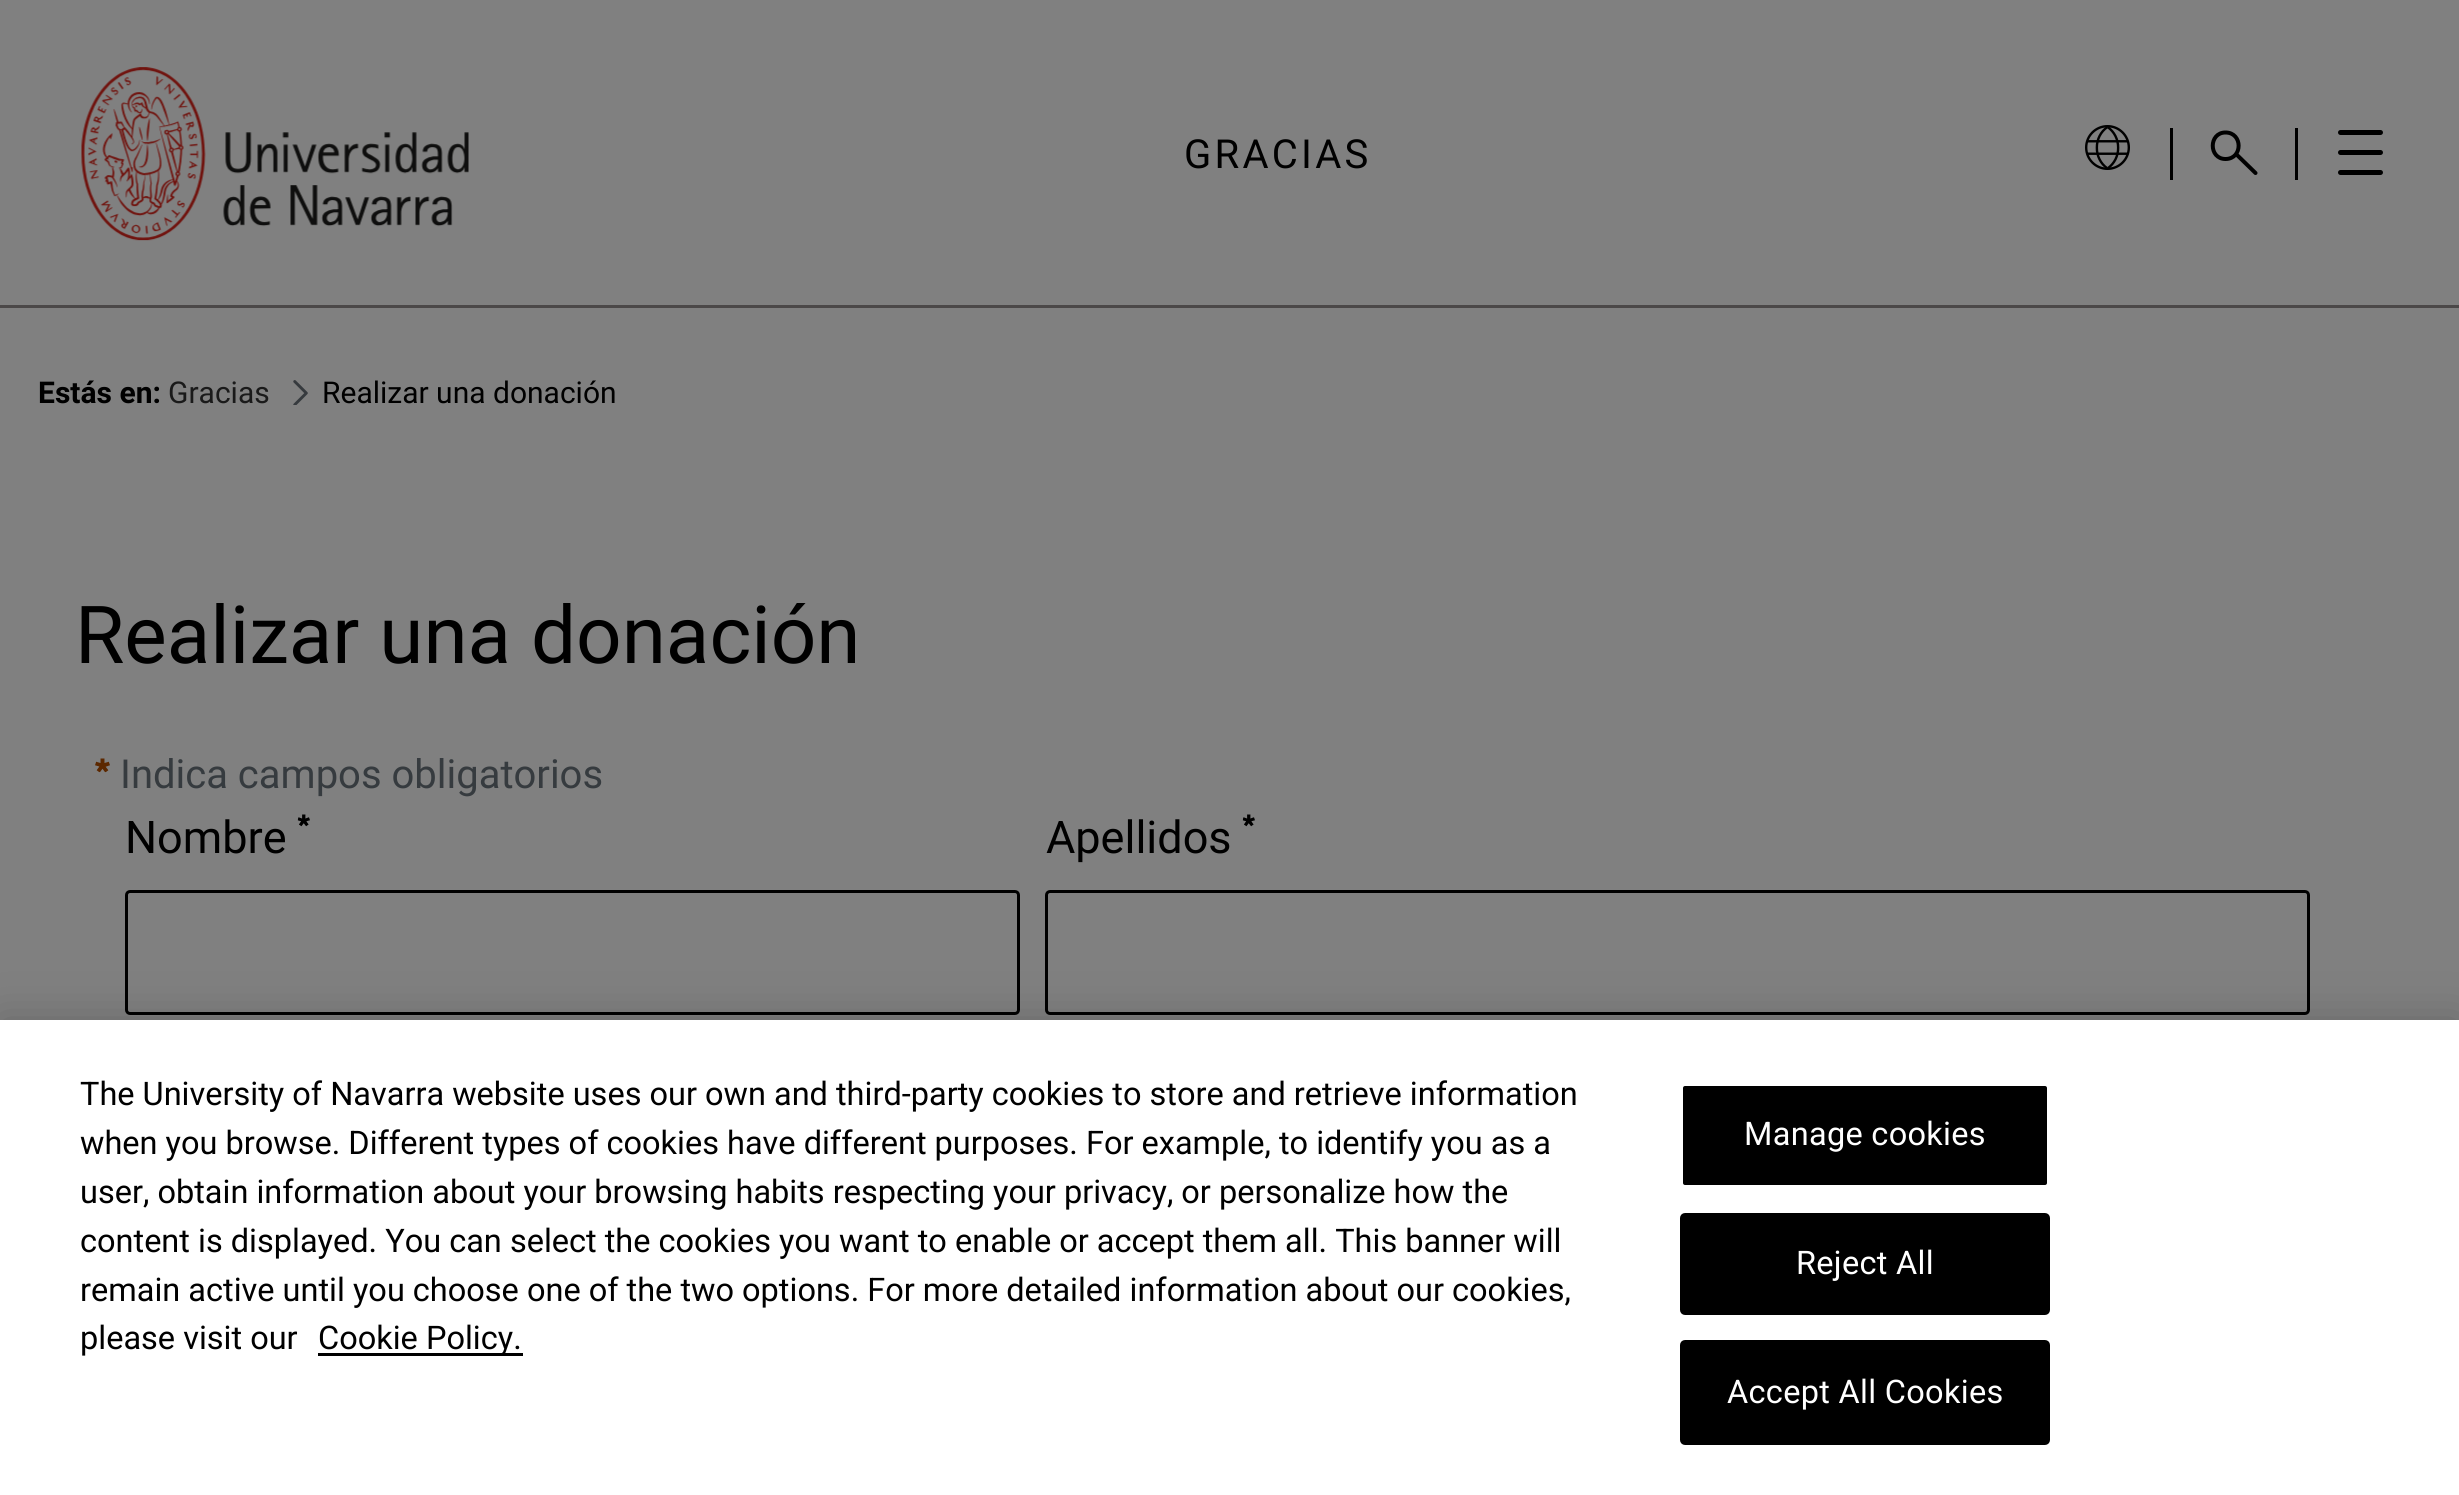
#include <cairo/cairo.h>
#include <math.h>
#include <stddef.h>


static void draw_spaced(cairo_t *cr, double x, double y, const char *s, double letter, double word) {
  cairo_move_to(cr, x, y);
  while (*s) {
    char ch[5] = {0};
    int n = 0;
    do ch[n++] = *s++; while ((*s & 0xC0) == 0x80);
    cairo_show_text(cr, ch);
    cairo_rel_move_to(cr, letter + word * (*ch == ' '), 0);
  }
}

static void rounded_rect(cairo_t *cr, double x, double y, double w, double h, double r) {
  cairo_new_sub_path(cr);
  cairo_arc(cr, x + w - r, y + h - r, r, 0, M_PI / 2);
  cairo_arc(cr, x + r, y + h - r, r, M_PI / 2, M_PI);
  cairo_arc(cr, x + r, y + r, r, M_PI, 1.5 * M_PI);
  cairo_arc(cr, x + w - r, y + r, r, 1.5 * M_PI, 2 * M_PI);
  cairo_close_path(cr);
}

static void draw_shadow(cairo_t *cr, double x, double y, double w, double h, double r, double blur, double alpha) {
  cairo_push_group_with_content(cr, CAIRO_CONTENT_ALPHA);
  cairo_set_operator(cr, CAIRO_OPERATOR_SOURCE);
  for (int i = 15; i >= -15 && fmin(w, h) + blur * i / 3 > 0; i -= 2) {
    double e = blur * i / 6;
    cairo_set_source_rgba(cr, 0, 0, 0, alpha * erfc((i - 1) / 8.5) / 2);
    rounded_rect(cr, x - e, y - e, w + 2 * e, h + 2 * e, fmax(0, fmin(r + e + blur * .6, fmin(w, h) / 2 + e)));
    cairo_fill(cr);
  }
  cairo_pattern_t *soft = cairo_pop_group(cr);
  cairo_mask(cr, soft);
  cairo_pattern_destroy(soft);
}

static void draw_image(cairo_t *cr, const char *path, double x, double y, double w, double h) {
  cairo_surface_t *image = cairo_image_surface_create_from_png(path);
  cairo_save(cr);
  cairo_set_source_surface(cr, image, x, y);
  cairo_rectangle(cr, x, y, w, h);
  cairo_fill(cr);
  cairo_restore(cr);
  cairo_surface_destroy(image);
}

static void draw(cairo_t *cr) {
  cairo_set_source_rgb(cr, 128 / 255.0, 128 / 255.0, 128 / 255.0);
  cairo_paint(cr);
  cairo_set_source_rgb(cr, 75 / 255.0, 72 / 255.0, 72 / 255.0);
  cairo_rectangle(cr, 0, 305, 2459, 3);
  cairo_fill(cr);
  draw_image(cr, "images/1.png", 81, 67, 388, 174);
  cairo_set_source_rgb(cr, 0, 0, 0);
  cairo_rectangle(cr, 2170, 128, 3, 52);
  cairo_fill(cr);
  draw_image(cr, "images/2.png", 2085, 125, 45, 45);
  cairo_rectangle(cr, 2295, 128, 3, 52);
  cairo_fill(cr);
  cairo_new_path(cr);
  cairo_move_to(cr, 2225.5, 159);
  cairo_curve_to(cr, 2243, 159, 2243, 132.5, 2225.5, 132.5);
  cairo_curve_to(cr, 2208.5, 132.5, 2208.5, 159, 2225.5, 159);
  cairo_close_path(cr);
  cairo_move_to(cr, 2236, 154);
  cairo_line_to(cr, 2255.5, 173);
  cairo_set_line_width(cr, 4);
  cairo_set_line_cap(cr, CAIRO_LINE_CAP_ROUND);
  cairo_set_line_join(cr, CAIRO_LINE_JOIN_ROUND);
  cairo_stroke(cr);
  rounded_rect(cr, 2338, 130, 45, 5, 2.5);
  cairo_fill(cr);
  rounded_rect(cr, 2338, 150, 45, 5, 2.5);
  cairo_fill(cr);
  rounded_rect(cr, 2338, 170, 45, 5, 2.5);
  cairo_fill(cr);
  draw_image(cr, "images/3.png", 293, 380, 15, 25);
  draw_image(cr, "images/4.png", 95, 758, 15, 15);
  draw_image(cr, "images/5.png", 297, 814, 13, 13);
  rounded_rect(cr, 126.5, 891.5, 892, 122, 3.5);
  cairo_set_line_width(cr, 3);
  cairo_set_line_cap(cr, CAIRO_LINE_CAP_BUTT);
  cairo_set_line_join(cr, CAIRO_LINE_JOIN_MITER);
  cairo_stroke(cr);
  draw_image(cr, "images/5.png", 1242, 814, 13, 13);
  rounded_rect(cr, 1046.5, 891.5, 1262, 122, 3.5);
  cairo_stroke(cr);
  cairo_set_source_rgb(cr, 0, 0, 0);
  draw_shadow(cr, 0, 1020, 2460, 475, 0, 22.5, 0.2);
  cairo_set_source_rgb(cr, 1, 1, 1);
  cairo_rectangle(cr, 0, 1020, 2459, 475);
  cairo_fill(cr);
  cairo_set_source_rgb(cr, 0, 0, 0);
  cairo_rectangle(cr, 318, 1353, 205, 3);
  cairo_fill(cr);
  rounded_rect(cr, 1681.5, 1084.5, 367, 102, 3.5);
  cairo_fill_preserve(cr);
  cairo_set_source_rgb(cr, 1, 1, 1);
  cairo_stroke(cr);
  cairo_set_source_rgb(cr, 0, 0, 0);
  rounded_rect(cr, 1681.5, 1214.5, 367, 99, 3.5);
  cairo_fill_preserve(cr);
  cairo_stroke(cr);
  rounded_rect(cr, 1681.5, 1341.5, 367, 102, 3.5);
  cairo_fill_preserve(cr);
  cairo_stroke(cr);
  cairo_select_font_face(cr, "Roboto", CAIRO_FONT_SLANT_NORMAL, CAIRO_FONT_WEIGHT_NORMAL);
  cairo_set_font_size(cr, 40);
  draw_spaced(cr, 1184, 168, "GRACIAS", 3.25, 0);
  cairo_select_font_face(cr, "Roboto", CAIRO_FONT_SLANT_NORMAL, CAIRO_FONT_WEIGHT_BOLD);
  cairo_set_font_size(cr, 30);
  cairo_move_to(cr, 38, 403);
  cairo_show_text(cr, "Estás en:");
  cairo_select_font_face(cr, "Roboto", CAIRO_FONT_SLANT_NORMAL, CAIRO_FONT_WEIGHT_NORMAL);
  cairo_set_source_rgb(cr, 26 / 255.0, 26 / 255.0, 26 / 255.0);
  cairo_move_to(cr, 168, 403);
  cairo_show_text(cr, "Gracias");
  cairo_set_source_rgb(cr, 0, 0, 0);
  cairo_move_to(cr, 322, 403);
  cairo_show_text(cr, "Realizar una donación");
  cairo_set_font_size(cr, 80);
  cairo_move_to(cr, 75, 663);
  cairo_show_text(cr, "Realizar una donación");
  cairo_set_font_size(cr, 40);
  cairo_set_source_rgb(cr, 54 / 255.0, 59 / 255.0, 63 / 255.0);
  cairo_move_to(cr, 120, 788);
  cairo_show_text(cr, "Indica campos obligatorios");
  cairo_set_font_size(cr, 45);
  cairo_set_source_rgb(cr, 0, 0, 0);
  cairo_move_to(cr, 125, 853);
  cairo_show_text(cr, "Nombre");
  cairo_move_to(cr, 1046, 853);
  cairo_show_text(cr, "Apellidos");
  cairo_set_font_size(cr, 32.5);
  cairo_move_to(cr, 80, 1105);
  cairo_show_text(cr, "The University of Navarra website uses our own and third-party cookies to store and retrieve information");
  cairo_move_to(cr, 80, 1154);
  cairo_show_text(cr, "when you browse. Different types of cookies have different purposes. For example, to identify you as a");
  cairo_move_to(cr, 80, 1203);
  cairo_show_text(cr, "user, obtain information about your browsing habits respecting your privacy, or personalize how the");
  cairo_move_to(cr, 80, 1252);
  cairo_show_text(cr, "content is displayed. You can select the cookies you want to enable or accept them all. This banner will");
  cairo_move_to(cr, 80, 1301);
  cairo_show_text(cr, "remain active until you choose one of the two options. For more detailed information about our cookies,");
  cairo_move_to(cr, 80, 1349);
  cairo_show_text(cr, "please visit our");
  cairo_move_to(cr, 318, 1349);
  cairo_show_text(cr, "Cookie Policy.");
  cairo_set_source_rgb(cr, 1, 1, 1);
  draw_spaced(cr, 1744, 1145, "Manage cookies", 0.3, 0);
  draw_spaced(cr, 1796, 1274, "Reject All", 0.3, 0);
  draw_spaced(cr, 1727, 1403, "Accept All Cookies", 0.3, 0);
}

int main(void) {
  cairo_surface_t *surface = cairo_image_surface_create(CAIRO_FORMAT_RGB24, 2459, 1495);
  cairo_t *cr = cairo_create(surface);
  cairo_font_options_t *options = cairo_font_options_create();
  cairo_font_options_set_hint_metrics(options, CAIRO_HINT_METRICS_OFF);
  cairo_font_options_set_hint_style(options, CAIRO_HINT_STYLE_NONE);
  cairo_set_font_options(cr, options);
  cairo_set_miter_limit(cr, 4);
  draw(cr);
  cairo_surface_write_to_png(surface, "out.png");
  cairo_font_options_destroy(options);
  cairo_destroy(cr);
  cairo_surface_destroy(surface);
  return 0;
}
